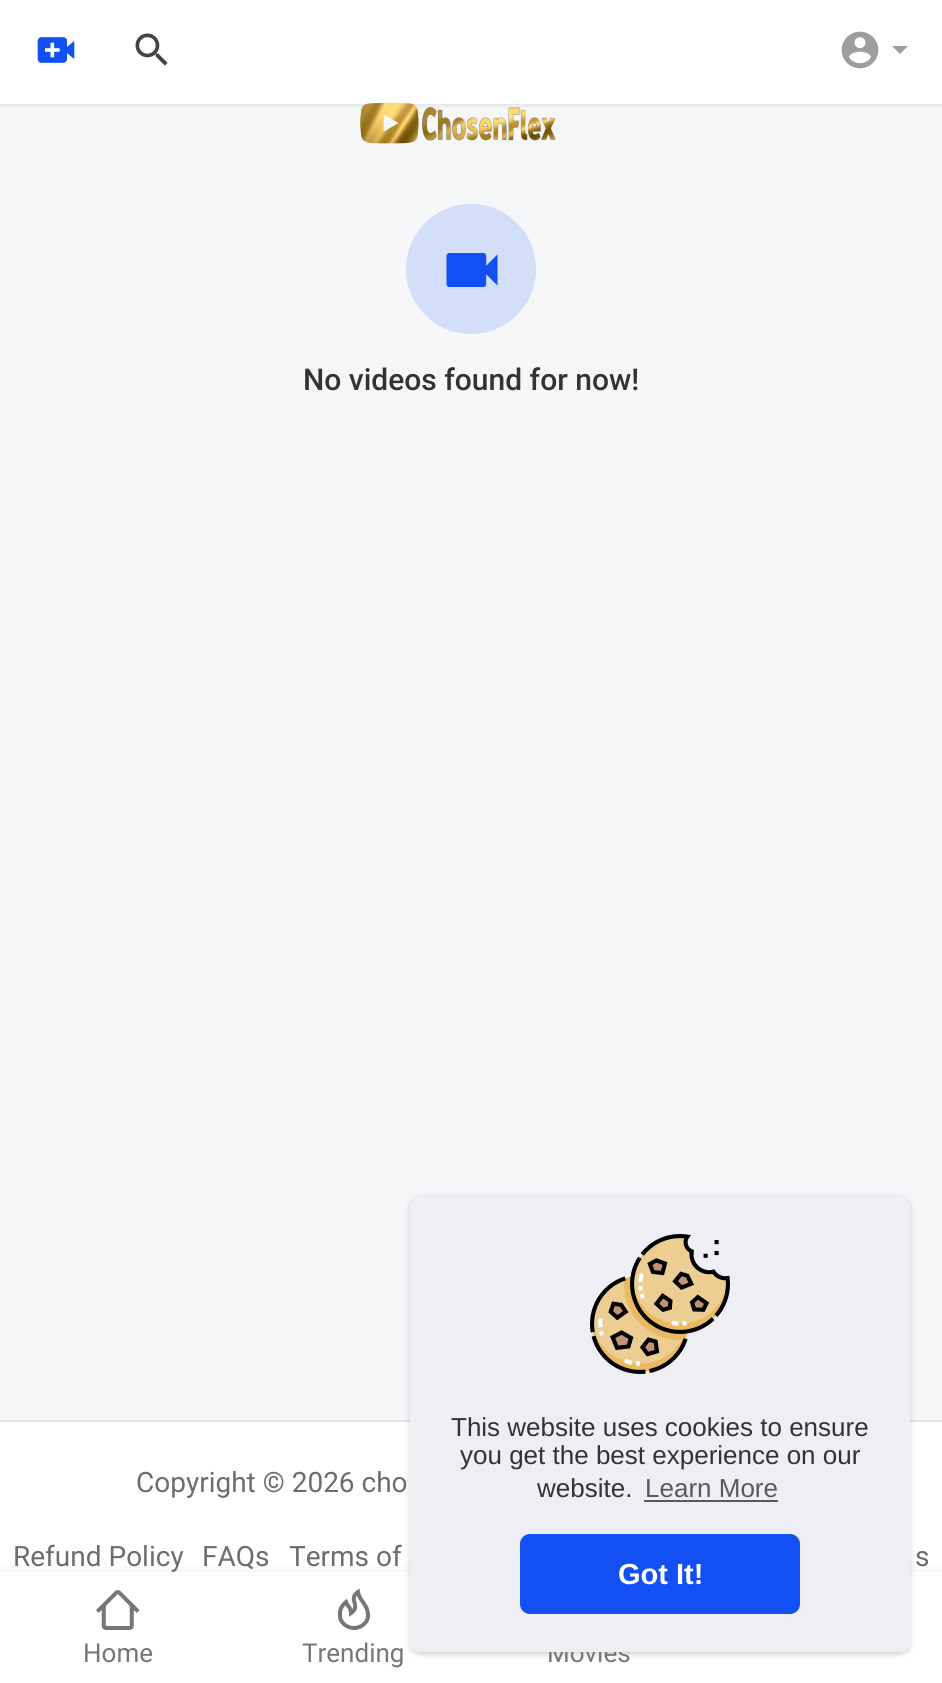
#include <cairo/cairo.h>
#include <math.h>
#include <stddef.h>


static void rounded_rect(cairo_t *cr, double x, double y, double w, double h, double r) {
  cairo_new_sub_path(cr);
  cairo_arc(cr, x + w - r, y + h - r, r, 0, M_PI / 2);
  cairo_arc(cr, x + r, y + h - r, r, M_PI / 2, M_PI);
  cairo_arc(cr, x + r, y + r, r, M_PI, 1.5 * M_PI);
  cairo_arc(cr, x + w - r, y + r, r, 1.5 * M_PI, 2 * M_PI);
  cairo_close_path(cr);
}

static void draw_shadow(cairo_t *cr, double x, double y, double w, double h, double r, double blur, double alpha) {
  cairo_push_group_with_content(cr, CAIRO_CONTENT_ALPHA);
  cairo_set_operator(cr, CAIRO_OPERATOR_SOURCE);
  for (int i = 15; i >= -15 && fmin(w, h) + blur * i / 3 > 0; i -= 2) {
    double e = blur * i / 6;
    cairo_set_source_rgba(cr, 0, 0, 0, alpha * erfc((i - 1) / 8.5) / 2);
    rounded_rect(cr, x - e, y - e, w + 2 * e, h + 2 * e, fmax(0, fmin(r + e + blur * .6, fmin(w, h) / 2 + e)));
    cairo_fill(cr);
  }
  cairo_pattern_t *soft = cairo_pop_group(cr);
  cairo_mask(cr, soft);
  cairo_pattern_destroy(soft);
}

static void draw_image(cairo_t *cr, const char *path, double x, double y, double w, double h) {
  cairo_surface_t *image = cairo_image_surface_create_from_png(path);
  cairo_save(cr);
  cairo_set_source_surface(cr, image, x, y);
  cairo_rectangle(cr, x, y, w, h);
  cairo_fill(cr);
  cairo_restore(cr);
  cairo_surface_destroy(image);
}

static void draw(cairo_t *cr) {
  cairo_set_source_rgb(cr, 245 / 255.0, 247 / 255.0, 249 / 255.0);
  cairo_paint(cr);
  cairo_set_source_rgb(cr, 0, 0, 0);
  draw_shadow(cr, 0, 2, 942, 104, 0, 2, 0.08);
  cairo_set_source_rgb(cr, 1, 1, 1);
  cairo_rectangle(cr, 0, 0, 942, 104);
  cairo_fill(cr);
  draw_image(cr, "images/1.png", 37, 37, 38, 26);
  draw_image(cr, "images/2.png", 135, 33, 33, 33);
  draw_image(cr, "images/3.png", 841, 31, 38, 38);
  cairo_set_source_rgb(cr, 158 / 255.0, 158 / 255.0, 158 / 255.0);
  cairo_new_path(cr);
  cairo_move_to(cr, 892, 46);
  cairo_line_to(cr, 908, 46);
  cairo_line_to(cr, 900, 54);
  cairo_close_path(cr);
  cairo_fill(cr);
  draw_image(cr, "images/4.png", 360, 102, 196, 42);
  cairo_set_source_rgb(cr, 211 / 255.0, 222 / 255.0, 248 / 255.0);
  cairo_arc(cr, 471, 269, 65, 0, 2 * M_PI);
  cairo_fill(cr);
  draw_image(cr, "images/5.png", 446, 253, 52, 34);
  cairo_set_source_rgb(cr, 1, 1, 1);
  cairo_rectangle(cr, 0, 1422, 942, 150);
  cairo_fill(cr);
  cairo_set_source_rgb(cr, 228 / 255.0, 228 / 255.0, 228 / 255.0);
  cairo_rectangle(cr, 0, 1420, 942, 2);
  cairo_fill(cr);
  cairo_set_source_rgb(cr, 0, 0, 0);
  draw_shadow(cr, 0, 1570, 942, 112, 0, 5, 0.05);
  cairo_set_source_rgb(cr, 1, 1, 1);
  cairo_rectangle(cr, 0, 1572, 942, 111);
  cairo_fill(cr);
  cairo_set_source_rgb(cr, 0, 0, 0);
  draw_shadow(cr, 410, 1198, 500, 456, 10, 3, 0.2);
  draw_image(cr, "images/7.png", 96, 1590, 44, 40);
  draw_image(cr, "images/8.png", 338, 1588, 32, 42);
  cairo_select_font_face(cr, "Roboto Medium", CAIRO_FONT_SLANT_NORMAL, CAIRO_FONT_WEIGHT_NORMAL);
  cairo_set_font_size(cr, 30);
  cairo_set_source_rgb(cr, 51 / 255.0, 51 / 255.0, 51 / 255.0);
  cairo_move_to(cr, 303, 390);
  cairo_show_text(cr, "No videos found for now!");
  cairo_select_font_face(cr, "Roboto", CAIRO_FONT_SLANT_NORMAL, CAIRO_FONT_WEIGHT_NORMAL);
  cairo_set_font_size(cr, 28);
  cairo_set_source_rgb(cr, 109 / 255.0, 109 / 255.0, 109 / 255.0);
  cairo_move_to(cr, 136, 1492);
  cairo_show_text(cr, "Copyright © 2026 cho");
  cairo_move_to(cr, 13, 1566);
  cairo_show_text(cr, "Refund Policy");
  cairo_move_to(cr, 202, 1566);
  cairo_show_text(cr, "FAQs");
  cairo_move_to(cr, 289, 1566);
  cairo_show_text(cr, "Terms of");
  cairo_move_to(cr, 915, 1566);
  cairo_show_text(cr, "s");
  cairo_set_font_size(cr, 26);
  cairo_set_source_rgb(cr, 118 / 255.0, 118 / 255.0, 118 / 255.0);
  cairo_move_to(cr, 83, 1662);
  cairo_show_text(cr, "Home");
  cairo_move_to(cr, 302, 1662);
  cairo_show_text(cr, "Trending");
  cairo_move_to(cr, 547, 1662);
  cairo_show_text(cr, "Movies");
  cairo_set_source_rgb(cr, 237 / 255.0, 239 / 255.0, 245 / 255.0);
  rounded_rect(cr, 410, 1196, 500, 456, 10);
  cairo_fill(cr);
  cairo_select_font_face(cr, "Liberation Sans", CAIRO_FONT_SLANT_NORMAL, CAIRO_FONT_WEIGHT_NORMAL);
  cairo_set_source_rgb(cr, 88 / 255.0, 89 / 255.0, 90 / 255.0);
  cairo_move_to(cr, 645, 1497);
  cairo_show_text(cr, "Learn More");
  cairo_rectangle(cr, 644, 1500, 134, 2);
  cairo_fill(cr);
  cairo_set_source_rgb(cr, 19 / 255.0, 80 / 255.0, 243 / 255.0);
  rounded_rect(cr, 520, 1534, 280, 80, 10);
  cairo_fill(cr);
  cairo_select_font_face(cr, "Liberation Sans", CAIRO_FONT_SLANT_NORMAL, CAIRO_FONT_WEIGHT_BOLD);
  cairo_set_font_size(cr, 29);
  cairo_set_source_rgb(cr, 1, 1, 1);
  cairo_move_to(cr, 618, 1584);
  cairo_show_text(cr, "Got It!");
  cairo_select_font_face(cr, "Liberation Sans", CAIRO_FONT_SLANT_NORMAL, CAIRO_FONT_WEIGHT_NORMAL);
  cairo_set_font_size(cr, 26);
  cairo_set_source_rgb(cr, 51 / 255.0, 51 / 255.0, 51 / 255.0);
  cairo_move_to(cr, 537, 1497);
  cairo_show_text(cr, "website.");
  cairo_move_to(cr, 460, 1464);
  cairo_show_text(cr, "you get the best experience on our");
  cairo_move_to(cr, 451, 1436);
  cairo_show_text(cr, "This website uses cookies to ensure");
  draw_image(cr, "images/6.png", 590, 1234, 140, 140);
}

int main(void) {
  cairo_surface_t *surface = cairo_image_surface_create(CAIRO_FORMAT_RGB24, 942, 1683);
  cairo_t *cr = cairo_create(surface);
  cairo_font_options_t *options = cairo_font_options_create();
  cairo_font_options_set_hint_metrics(options, CAIRO_HINT_METRICS_OFF);
  cairo_font_options_set_hint_style(options, CAIRO_HINT_STYLE_NONE);
  cairo_set_font_options(cr, options);
  cairo_set_miter_limit(cr, 4);
  draw(cr);
  cairo_surface_write_to_png(surface, "out.png");
  cairo_font_options_destroy(options);
  cairo_destroy(cr);
  cairo_surface_destroy(surface);
  return 0;
}
